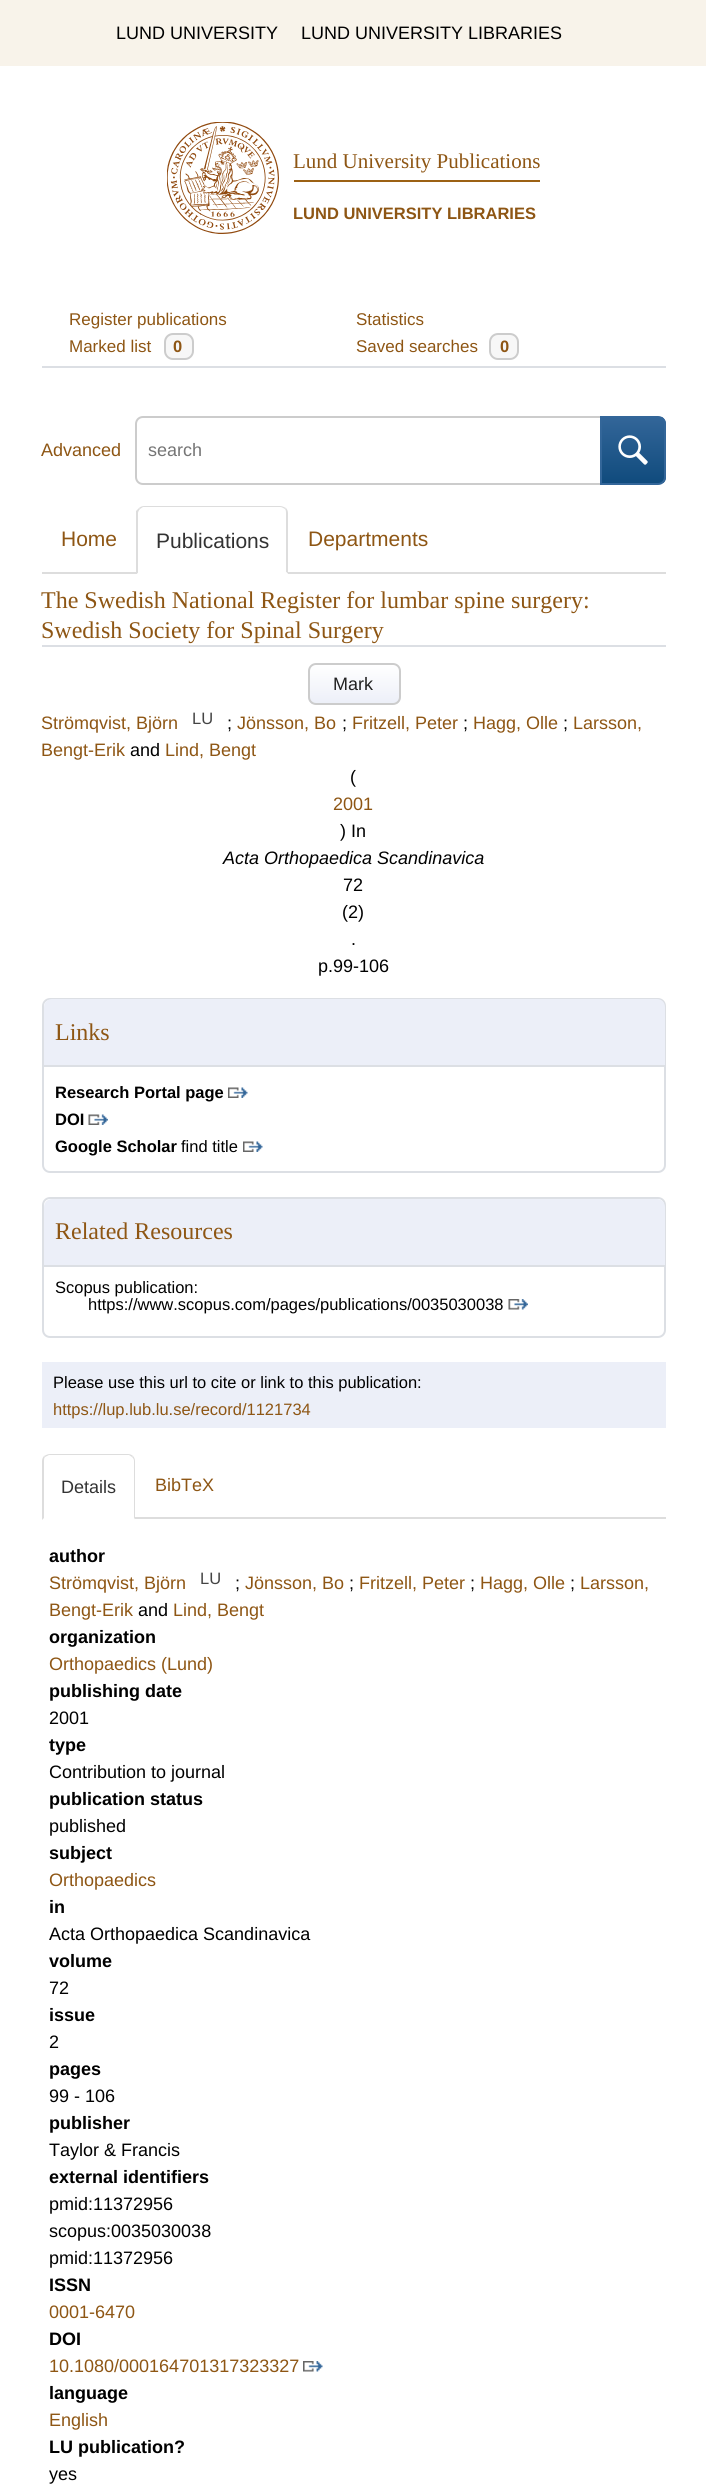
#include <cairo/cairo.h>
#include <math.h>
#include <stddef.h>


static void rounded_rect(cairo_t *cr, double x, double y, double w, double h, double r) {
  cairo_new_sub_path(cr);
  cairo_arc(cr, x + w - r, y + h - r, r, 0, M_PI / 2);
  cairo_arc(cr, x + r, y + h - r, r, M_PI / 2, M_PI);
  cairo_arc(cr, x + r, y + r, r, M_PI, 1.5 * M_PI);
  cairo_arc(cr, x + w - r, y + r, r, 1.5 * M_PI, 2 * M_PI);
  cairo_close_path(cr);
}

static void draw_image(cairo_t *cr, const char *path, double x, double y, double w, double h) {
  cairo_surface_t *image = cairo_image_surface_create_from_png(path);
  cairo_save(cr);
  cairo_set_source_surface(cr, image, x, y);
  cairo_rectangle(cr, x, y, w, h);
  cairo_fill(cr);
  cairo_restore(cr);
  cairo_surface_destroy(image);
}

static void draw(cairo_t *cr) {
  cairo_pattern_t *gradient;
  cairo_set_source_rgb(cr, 1, 1, 1);
  cairo_paint(cr);
  cairo_set_source_rgb(cr, 248 / 255.0, 243 / 255.0, 234 / 255.0);
  cairo_rectangle(cr, 0, 0, 706, 66);
  cairo_fill(cr);
  draw_image(cr, "images/1.png", 167, 122, 112, 112);
  cairo_set_source_rgb(cr, 156 / 255.0, 97 / 255.0, 20 / 255.0);
  cairo_rectangle(cr, 294, 180, 246, 2);
  cairo_fill(cr);
  cairo_set_source_rgb(cr, 220 / 255.0, 223 / 255.0, 228 / 255.0);
  cairo_rectangle(cr, 42, 366, 624, 2);
  cairo_fill(cr);
  cairo_set_source_rgb(cr, 247 / 255.0, 247 / 255.0, 247 / 255.0);
  rounded_rect(cr, 165, 334, 28, 25, 8);
  cairo_fill_preserve(cr);
  cairo_set_source_rgb(cr, 204 / 255.0, 204 / 255.0, 204 / 255.0);
  cairo_stroke(cr);
  cairo_set_source_rgb(cr, 247 / 255.0, 247 / 255.0, 247 / 255.0);
  rounded_rect(cr, 490, 334, 28, 25, 8);
  cairo_fill_preserve(cr);
  cairo_set_source_rgb(cr, 204 / 255.0, 204 / 255.0, 204 / 255.0);
  cairo_stroke(cr);
  cairo_new_path(cr);
  cairo_move_to(cr, 143, 417);
  cairo_line_to(cr, 601, 417);
  cairo_line_to(cr, 601, 484);
  cairo_line_to(cr, 143, 484);
  cairo_curve_to(cr, 139, 484, 136, 481, 136, 477);
  cairo_line_to(cr, 136, 424);
  cairo_curve_to(cr, 136, 420, 139, 417, 143, 417);
  cairo_close_path(cr);
  cairo_stroke(cr);
  cairo_save(cr);
  cairo_new_path(cr);
  cairo_move_to(cr, 600, 416);
  cairo_line_to(cr, 658, 416);
  cairo_curve_to(cr, 662.5, 416, 666, 419.5, 666, 424);
  cairo_line_to(cr, 666, 477);
  cairo_curve_to(cr, 666, 481.5, 662.5, 485, 658, 485);
  cairo_line_to(cr, 600, 485);
  cairo_close_path(cr);
  cairo_clip(cr);
  gradient = cairo_pattern_create_linear(633, 417, 633, 483);
  cairo_pattern_add_color_stop_rgba(gradient, 0, 51 / 255.0, 102 / 255.0, 153 / 255.0, 1);
  cairo_pattern_add_color_stop_rgba(gradient, 1, 16 / 255.0, 75 / 255.0, 125 / 255.0, 1);
  cairo_set_source(cr, gradient);
  cairo_pattern_destroy(gradient);
  cairo_rectangle(cr, 602, 417, 64, 66);
  cairo_fill(cr);
  cairo_restore(cr);
  cairo_new_path(cr);
  cairo_move_to(cr, 601, 417);
  cairo_line_to(cr, 658, 417);
  cairo_curve_to(cr, 662, 417, 665, 420, 665, 424);
  cairo_line_to(cr, 665, 477);
  cairo_curve_to(cr, 665, 481, 662, 484, 658, 484);
  cairo_line_to(cr, 601, 484);
  cairo_close_path(cr);
  cairo_set_source_rgb(cr, 51 / 255.0, 102 / 255.0, 153 / 255.0);
  cairo_stroke(cr);
  draw_image(cr, "images/2.png", 618, 435, 30, 30);
  cairo_set_source_rgb(cr, 221 / 255.0, 221 / 255.0, 221 / 255.0);
  cairo_rectangle(cr, 42, 572, 624, 2);
  cairo_fill(cr);
  cairo_set_source_rgb(cr, 1, 1, 1);
  cairo_new_path(cr);
  cairo_move_to(cr, 145, 506);
  cairo_line_to(cr, 280, 506);
  cairo_curve_to(cr, 284.5, 506, 288, 509.5, 288, 514);
  cairo_line_to(cr, 288, 575);
  cairo_line_to(cr, 137, 575);
  cairo_line_to(cr, 137, 514);
  cairo_curve_to(cr, 137, 509.5, 140.5, 506, 145, 506);
  cairo_close_path(cr);
  cairo_fill(cr);
  cairo_set_source_rgb(cr, 221 / 255.0, 221 / 255.0, 221 / 255.0);
  cairo_new_path(cr);
  cairo_move_to(cr, 144, 506);
  cairo_curve_to(cr, 142, 506, 140, 507, 139, 508);
  cairo_line_to(cr, 140, 509);
  cairo_line_to(cr, 143, 507);
  cairo_line_to(cr, 280, 507);
  cairo_curve_to(cr, 282, 507, 283, 508, 285, 509);
  cairo_line_to(cr, 286, 508);
  cairo_curve_to(cr, 284, 507, 282, 506, 280, 506);
  cairo_close_path(cr);
  cairo_fill(cr);
  cairo_new_path(cr);
  cairo_move_to(cr, 286, 508);
  cairo_curve_to(cr, 287, 509, 288, 511, 288, 513);
  cairo_line_to(cr, 288, 574);
  cairo_line_to(cr, 286, 572);
  cairo_line_to(cr, 286, 513);
  cairo_curve_to(cr, 286, 512, 286, 510, 285, 509);
  cairo_close_path(cr);
  cairo_fill(cr);
  cairo_set_source_rgb(cr, 1, 1, 1);
  cairo_new_path(cr);
  cairo_move_to(cr, 288, 574);
  cairo_line_to(cr, 137, 574);
  cairo_line_to(cr, 138, 573);
  cairo_line_to(cr, 286, 573);
  cairo_line_to(cr, 286, 572);
  cairo_close_path(cr);
  cairo_fill(cr);
  cairo_set_source_rgb(cr, 221 / 255.0, 221 / 255.0, 221 / 255.0);
  cairo_new_path(cr);
  cairo_move_to(cr, 136, 511);
  cairo_line_to(cr, 139, 508);
  cairo_line_to(cr, 140, 509);
  cairo_curve_to(cr, 139, 510, 138, 512, 138, 513);
  cairo_line_to(cr, 138, 573);
  cairo_line_to(cr, 136, 574);
  cairo_close_path(cr);
  cairo_fill(cr);
  cairo_set_source_rgb(cr, 220 / 255.0, 223 / 255.0, 228 / 255.0);
  cairo_rectangle(cr, 42, 645, 624, 2);
  cairo_fill(cr);
  cairo_save(cr);
  rounded_rect(cr, 308, 663, 93, 42, 8);
  cairo_clip(cr);
  gradient = cairo_pattern_create_linear(354, 665, 354, 704);
  cairo_pattern_add_color_stop_rgba(gradient, 0, 1, 1, 1, 1);
  cairo_pattern_add_color_stop_rgba(gradient, 1, 236 / 255.0, 239 / 255.0, 248 / 255.0, 1);
  cairo_set_source(cr, gradient);
  cairo_pattern_destroy(gradient);
  cairo_rectangle(cr, 308, 665, 93, 39);
  cairo_fill(cr);
  cairo_restore(cr);
  rounded_rect(cr, 309, 664, 91, 40, 7);
  cairo_set_source_rgb(cr, 204 / 255.0, 204 / 255.0, 204 / 255.0);
  cairo_stroke(cr);
  rounded_rect(cr, 43, 999, 622, 173, 7);
  cairo_set_source_rgb(cr, 220 / 255.0, 223 / 255.0, 228 / 255.0);
  cairo_stroke(cr);
  cairo_set_source_rgb(cr, 236 / 255.0, 239 / 255.0, 248 / 255.0);
  cairo_new_path(cr);
  cairo_move_to(cr, 52, 999);
  cairo_line_to(cr, 657, 999);
  cairo_curve_to(cr, 661.5, 999, 665, 1002.5, 665, 1007);
  cairo_line_to(cr, 665, 1067);
  cairo_line_to(cr, 44, 1067);
  cairo_line_to(cr, 44, 1007);
  cairo_curve_to(cr, 44, 1002.5, 47.5, 999, 52, 999);
  cairo_close_path(cr);
  cairo_fill(cr);
  cairo_set_source_rgb(cr, 220 / 255.0, 223 / 255.0, 228 / 255.0);
  cairo_rectangle(cr, 44, 1065, 621, 2);
  cairo_fill(cr);
  draw_image(cr, "images/3.png", 228, 1087, 20, 11);
  draw_image(cr, "images/4.png", 88, 1114, 20, 11);
  draw_image(cr, "images/3.png", 243, 1141, 20, 11);
  rounded_rect(cr, 43, 1198, 622, 139, 7);
  cairo_stroke(cr);
  cairo_set_source_rgb(cr, 236 / 255.0, 239 / 255.0, 248 / 255.0);
  cairo_new_path(cr);
  cairo_move_to(cr, 52, 1199);
  cairo_line_to(cr, 657, 1199);
  cairo_curve_to(cr, 661.5, 1199, 665, 1202.5, 665, 1207);
  cairo_line_to(cr, 665, 1266);
  cairo_line_to(cr, 44, 1266);
  cairo_line_to(cr, 44, 1207);
  cairo_curve_to(cr, 44, 1202.5, 47.5, 1199, 52, 1199);
  cairo_close_path(cr);
  cairo_fill(cr);
  cairo_set_source_rgb(cr, 220 / 255.0, 223 / 255.0, 228 / 255.0);
  cairo_rectangle(cr, 44, 1265, 621, 2);
  cairo_fill(cr);
  draw_image(cr, "images/5.png", 508, 1299, 20, 11);
  cairo_set_source_rgb(cr, 236 / 255.0, 239 / 255.0, 248 / 255.0);
  cairo_rectangle(cr, 42, 1362, 624, 66);
  cairo_fill(cr);
  cairo_set_source_rgb(cr, 221 / 255.0, 221 / 255.0, 221 / 255.0);
  cairo_rectangle(cr, 135, 1517, 531, 2);
  cairo_fill(cr);
  cairo_new_path(cr);
  cairo_move_to(cr, 50, 1454);
  cairo_curve_to(cr, 48, 1454, 46, 1455, 44, 1456);
  cairo_line_to(cr, 45, 1457);
  cairo_line_to(cr, 49, 1455);
  cairo_line_to(cr, 129, 1455);
  cairo_line_to(cr, 132, 1457);
  cairo_line_to(cr, 133, 1456);
  cairo_curve_to(cr, 132, 1455, 130, 1454, 128, 1454);
  cairo_close_path(cr);
  cairo_fill(cr);
  cairo_new_path(cr);
  cairo_move_to(cr, 133, 1456);
  cairo_curve_to(cr, 134, 1457, 135, 1459, 135, 1461);
  cairo_line_to(cr, 135, 1520);
  cairo_line_to(cr, 134, 1518);
  cairo_line_to(cr, 134, 1461);
  cairo_curve_to(cr, 134, 1459, 133, 1458, 132, 1457);
  cairo_close_path(cr);
  cairo_fill(cr);
  cairo_set_source_rgb(cr, 1, 1, 1);
  cairo_new_path(cr);
  cairo_move_to(cr, 135, 1520);
  cairo_line_to(cr, 42, 1520);
  cairo_line_to(cr, 44, 1518);
  cairo_line_to(cr, 134, 1518);
  cairo_close_path(cr);
  cairo_fill(cr);
  cairo_set_source_rgb(cr, 221 / 255.0, 221 / 255.0, 221 / 255.0);
  cairo_new_path(cr);
  cairo_move_to(cr, 42, 1520);
  cairo_line_to(cr, 44, 1518);
  cairo_line_to(cr, 44, 1461);
  cairo_curve_to(cr, 44, 1460, 44, 1458, 45, 1457);
  cairo_line_to(cr, 44, 1456);
  cairo_curve_to(cr, 43, 1457, 42, 1459, 42, 1461);
  cairo_close_path(cr);
  cairo_fill(cr);
  draw_image(cr, "images/6.png", 303, 2361, 20, 11);
  cairo_select_font_face(cr, "Liberation Sans", CAIRO_FONT_SLANT_NORMAL, CAIRO_FONT_WEIGHT_NORMAL);
  cairo_set_font_size(cr, 18);
  cairo_set_source_rgb(cr, 0, 0, 0);
  cairo_move_to(cr, 116, 39);
  cairo_show_text(cr, "LUND UNIVERSITY");
  cairo_move_to(cr, 301, 39);
  cairo_show_text(cr, "LUND UNIVERSITY LIBRARIES");
  cairo_select_font_face(cr, "Liberation Serif", CAIRO_FONT_SLANT_NORMAL, CAIRO_FONT_WEIGHT_NORMAL);
  cairo_set_font_size(cr, 21);
  cairo_set_source_rgb(cr, 142 / 255.0, 86 / 255.0, 20 / 255.0);
  cairo_move_to(cr, 293, 168);
  cairo_show_text(cr, "Lund University Publications");
  cairo_select_font_face(cr, "Liberation Sans", CAIRO_FONT_SLANT_NORMAL, CAIRO_FONT_WEIGHT_BOLD);
  cairo_set_font_size(cr, 16.5);
  cairo_move_to(cr, 293, 219);
  cairo_show_text(cr, "LUND UNIVERSITY LIBRARIES");
  cairo_select_font_face(cr, "Liberation Sans", CAIRO_FONT_SLANT_NORMAL, CAIRO_FONT_WEIGHT_NORMAL);
  cairo_set_font_size(cr, 17);
  cairo_move_to(cr, 69, 325);
  cairo_show_text(cr, "Register publications");
  cairo_move_to(cr, 356, 325);
  cairo_show_text(cr, "Statistics");
  cairo_move_to(cr, 69, 352);
  cairo_show_text(cr, "Marked list");
  cairo_select_font_face(cr, "Liberation Sans", CAIRO_FONT_SLANT_NORMAL, CAIRO_FONT_WEIGHT_BOLD);
  cairo_set_font_size(cr, 16.5);
  cairo_move_to(cr, 173, 352);
  cairo_show_text(cr, "0");
  cairo_select_font_face(cr, "Liberation Sans", CAIRO_FONT_SLANT_NORMAL, CAIRO_FONT_WEIGHT_NORMAL);
  cairo_set_font_size(cr, 17);
  cairo_move_to(cr, 356, 352);
  cairo_show_text(cr, "Saved searches");
  cairo_select_font_face(cr, "Liberation Sans", CAIRO_FONT_SLANT_NORMAL, CAIRO_FONT_WEIGHT_BOLD);
  cairo_set_font_size(cr, 16.5);
  cairo_move_to(cr, 500, 352);
  cairo_show_text(cr, "0");
  cairo_select_font_face(cr, "Liberation Sans", CAIRO_FONT_SLANT_NORMAL, CAIRO_FONT_WEIGHT_NORMAL);
  cairo_set_font_size(cr, 18);
  cairo_move_to(cr, 41, 456);
  cairo_show_text(cr, "Advanced");
  cairo_set_source_rgb(cr, 117 / 255.0, 117 / 255.0, 117 / 255.0);
  cairo_move_to(cr, 148, 456);
  cairo_show_text(cr, "search");
  cairo_set_font_size(cr, 21);
  cairo_set_source_rgb(cr, 142 / 255.0, 86 / 255.0, 20 / 255.0);
  cairo_move_to(cr, 61, 546);
  cairo_show_text(cr, "Home");
  cairo_set_source_rgb(cr, 51 / 255.0, 51 / 255.0, 51 / 255.0);
  cairo_move_to(cr, 156, 548);
  cairo_show_text(cr, "Publications");
  cairo_set_source_rgb(cr, 142 / 255.0, 86 / 255.0, 20 / 255.0);
  cairo_move_to(cr, 308, 546);
  cairo_show_text(cr, "Departments");
  cairo_select_font_face(cr, "Liberation Serif", CAIRO_FONT_SLANT_NORMAL, CAIRO_FONT_WEIGHT_NORMAL);
  cairo_set_font_size(cr, 24);
  cairo_move_to(cr, 41, 608);
  cairo_show_text(cr, "The Swedish National Register for lumbar spine surgery:");
  cairo_move_to(cr, 41, 638);
  cairo_show_text(cr, "Swedish Society for Spinal Surgery");
  cairo_select_font_face(cr, "Liberation Sans", CAIRO_FONT_SLANT_NORMAL, CAIRO_FONT_WEIGHT_NORMAL);
  cairo_set_font_size(cr, 18);
  cairo_set_source_rgb(cr, 34 / 255.0, 34 / 255.0, 34 / 255.0);
  cairo_move_to(cr, 333, 690);
  cairo_show_text(cr, "Mark");
  cairo_set_source_rgb(cr, 142 / 255.0, 86 / 255.0, 20 / 255.0);
  cairo_move_to(cr, 41, 729);
  cairo_show_text(cr, "Strömqvist, Björn");
  cairo_set_font_size(cr, 16.5);
  cairo_set_source_rgb(cr, 68 / 255.0, 68 / 255.0, 68 / 255.0);
  cairo_move_to(cr, 192, 724);
  cairo_show_text(cr, "LU");
  cairo_set_font_size(cr, 18);
  cairo_set_source_rgb(cr, 0, 0, 0);
  cairo_move_to(cr, 227, 729);
  cairo_show_text(cr, ";");
  cairo_set_source_rgb(cr, 142 / 255.0, 86 / 255.0, 20 / 255.0);
  cairo_move_to(cr, 237, 729);
  cairo_show_text(cr, "Jönsson, Bo");
  cairo_set_source_rgb(cr, 0, 0, 0);
  cairo_move_to(cr, 342, 729);
  cairo_show_text(cr, ";");
  cairo_set_source_rgb(cr, 142 / 255.0, 86 / 255.0, 20 / 255.0);
  cairo_move_to(cr, 352, 729);
  cairo_show_text(cr, "Fritzell, Peter");
  cairo_set_source_rgb(cr, 0, 0, 0);
  cairo_move_to(cr, 463, 729);
  cairo_show_text(cr, ";");
  cairo_set_source_rgb(cr, 142 / 255.0, 86 / 255.0, 20 / 255.0);
  cairo_move_to(cr, 473, 729);
  cairo_show_text(cr, "Hagg, Olle");
  cairo_set_source_rgb(cr, 0, 0, 0);
  cairo_move_to(cr, 563, 729);
  cairo_show_text(cr, ";");
  cairo_set_source_rgb(cr, 142 / 255.0, 86 / 255.0, 20 / 255.0);
  cairo_move_to(cr, 573, 729);
  cairo_show_text(cr, "Larsson,");
  cairo_move_to(cr, 41, 756);
  cairo_show_text(cr, "Bengt-Erik");
  cairo_set_source_rgb(cr, 0, 0, 0);
  cairo_move_to(cr, 130, 756);
  cairo_show_text(cr, "and");
  cairo_set_source_rgb(cr, 142 / 255.0, 86 / 255.0, 20 / 255.0);
  cairo_move_to(cr, 165, 756);
  cairo_show_text(cr, "Lind, Bengt");
  cairo_set_source_rgb(cr, 0, 0, 0);
  cairo_move_to(cr, 350, 783);
  cairo_show_text(cr, "(");
  cairo_set_source_rgb(cr, 142 / 255.0, 86 / 255.0, 20 / 255.0);
  cairo_move_to(cr, 333, 810);
  cairo_show_text(cr, "2001");
  cairo_set_source_rgb(cr, 0, 0, 0);
  cairo_move_to(cr, 340, 837);
  cairo_show_text(cr, ") In");
  cairo_select_font_face(cr, "Liberation Sans", CAIRO_FONT_SLANT_ITALIC, CAIRO_FONT_WEIGHT_NORMAL);
  cairo_move_to(cr, 223, 864);
  cairo_show_text(cr, "Acta Orthopaedica Scandinavica");
  cairo_select_font_face(cr, "Liberation Sans", CAIRO_FONT_SLANT_NORMAL, CAIRO_FONT_WEIGHT_NORMAL);
  cairo_move_to(cr, 343, 891);
  cairo_show_text(cr, "72");
  cairo_move_to(cr, 342, 918);
  cairo_show_text(cr, "(2)");
  cairo_move_to(cr, 351, 945);
  cairo_show_text(cr, ".");
  cairo_move_to(cr, 318, 972);
  cairo_show_text(cr, "p.99-106");
  cairo_select_font_face(cr, "Liberation Serif", CAIRO_FONT_SLANT_NORMAL, CAIRO_FONT_WEIGHT_NORMAL);
  cairo_set_font_size(cr, 24);
  cairo_set_source_rgb(cr, 142 / 255.0, 86 / 255.0, 20 / 255.0);
  cairo_move_to(cr, 55, 1040);
  cairo_show_text(cr, "Links");
  cairo_select_font_face(cr, "Liberation Sans", CAIRO_FONT_SLANT_NORMAL, CAIRO_FONT_WEIGHT_BOLD);
  cairo_set_font_size(cr, 16.5);
  cairo_set_source_rgb(cr, 0, 0, 0);
  cairo_move_to(cr, 55, 1098);
  cairo_show_text(cr, "Research Portal page");
  cairo_move_to(cr, 55, 1125);
  cairo_show_text(cr, "DOI");
  cairo_move_to(cr, 55, 1152);
  cairo_show_text(cr, "Google Scholar");
  cairo_select_font_face(cr, "Liberation Sans", CAIRO_FONT_SLANT_NORMAL, CAIRO_FONT_WEIGHT_NORMAL);
  cairo_move_to(cr, 181, 1152);
  cairo_show_text(cr, "find title");
  cairo_select_font_face(cr, "Liberation Serif", CAIRO_FONT_SLANT_NORMAL, CAIRO_FONT_WEIGHT_NORMAL);
  cairo_set_font_size(cr, 24);
  cairo_set_source_rgb(cr, 142 / 255.0, 86 / 255.0, 20 / 255.0);
  cairo_move_to(cr, 55, 1239);
  cairo_show_text(cr, "Related Resources");
  cairo_select_font_face(cr, "Liberation Sans", CAIRO_FONT_SLANT_NORMAL, CAIRO_FONT_WEIGHT_NORMAL);
  cairo_set_font_size(cr, 16.5);
  cairo_set_source_rgb(cr, 0, 0, 0);
  cairo_move_to(cr, 55, 1293);
  cairo_show_text(cr, "Scopus publication:");
  cairo_move_to(cr, 88, 1310);
  cairo_show_text(cr, "https://www.scopus.com/pages/publications/0035030038");
  cairo_move_to(cr, 53, 1388);
  cairo_show_text(cr, "Please use this url to cite or link to this publication:");
  cairo_set_source_rgb(cr, 142 / 255.0, 86 / 255.0, 20 / 255.0);
  cairo_move_to(cr, 53, 1415);
  cairo_show_text(cr, "https://lup.lub.lu.se/record/1121734");
  cairo_set_font_size(cr, 18);
  cairo_set_source_rgb(cr, 51 / 255.0, 51 / 255.0, 51 / 255.0);
  cairo_move_to(cr, 61, 1493);
  cairo_show_text(cr, "Details");
  cairo_set_source_rgb(cr, 142 / 255.0, 86 / 255.0, 20 / 255.0);
  cairo_move_to(cr, 155, 1491);
  cairo_show_text(cr, "BibTeX");
  cairo_select_font_face(cr, "Liberation Sans", CAIRO_FONT_SLANT_NORMAL, CAIRO_FONT_WEIGHT_BOLD);
  cairo_set_source_rgb(cr, 0, 0, 0);
  cairo_move_to(cr, 49, 1562);
  cairo_show_text(cr, "author");
  cairo_select_font_face(cr, "Liberation Sans", CAIRO_FONT_SLANT_NORMAL, CAIRO_FONT_WEIGHT_NORMAL);
  cairo_set_source_rgb(cr, 142 / 255.0, 86 / 255.0, 20 / 255.0);
  cairo_move_to(cr, 49, 1589);
  cairo_show_text(cr, "Strömqvist, Björn");
  cairo_set_font_size(cr, 16.5);
  cairo_set_source_rgb(cr, 68 / 255.0, 68 / 255.0, 68 / 255.0);
  cairo_move_to(cr, 200, 1584);
  cairo_show_text(cr, "LU");
  cairo_set_font_size(cr, 18);
  cairo_set_source_rgb(cr, 0, 0, 0);
  cairo_move_to(cr, 235, 1589);
  cairo_show_text(cr, ";");
  cairo_set_source_rgb(cr, 142 / 255.0, 86 / 255.0, 20 / 255.0);
  cairo_move_to(cr, 245, 1589);
  cairo_show_text(cr, "Jönsson, Bo");
  cairo_set_source_rgb(cr, 0, 0, 0);
  cairo_move_to(cr, 349, 1589);
  cairo_show_text(cr, ";");
  cairo_set_source_rgb(cr, 142 / 255.0, 86 / 255.0, 20 / 255.0);
  cairo_move_to(cr, 359, 1589);
  cairo_show_text(cr, "Fritzell, Peter");
  cairo_set_source_rgb(cr, 0, 0, 0);
  cairo_move_to(cr, 470, 1589);
  cairo_show_text(cr, ";");
  cairo_set_source_rgb(cr, 142 / 255.0, 86 / 255.0, 20 / 255.0);
  cairo_move_to(cr, 480, 1589);
  cairo_show_text(cr, "Hagg, Olle");
  cairo_set_source_rgb(cr, 0, 0, 0);
  cairo_move_to(cr, 570, 1589);
  cairo_show_text(cr, ";");
  cairo_set_source_rgb(cr, 142 / 255.0, 86 / 255.0, 20 / 255.0);
  cairo_move_to(cr, 580, 1589);
  cairo_show_text(cr, "Larsson,");
  cairo_move_to(cr, 49, 1616);
  cairo_show_text(cr, "Bengt-Erik");
  cairo_set_source_rgb(cr, 0, 0, 0);
  cairo_move_to(cr, 138, 1616);
  cairo_show_text(cr, "and");
  cairo_set_source_rgb(cr, 142 / 255.0, 86 / 255.0, 20 / 255.0);
  cairo_move_to(cr, 173, 1616);
  cairo_show_text(cr, "Lind, Bengt");
  cairo_select_font_face(cr, "Liberation Sans", CAIRO_FONT_SLANT_NORMAL, CAIRO_FONT_WEIGHT_BOLD);
  cairo_set_source_rgb(cr, 0, 0, 0);
  cairo_move_to(cr, 49, 1643);
  cairo_show_text(cr, "organization");
  cairo_select_font_face(cr, "Liberation Sans", CAIRO_FONT_SLANT_NORMAL, CAIRO_FONT_WEIGHT_NORMAL);
  cairo_set_source_rgb(cr, 142 / 255.0, 86 / 255.0, 20 / 255.0);
  cairo_move_to(cr, 49, 1670);
  cairo_show_text(cr, "Orthopaedics (Lund)");
  cairo_select_font_face(cr, "Liberation Sans", CAIRO_FONT_SLANT_NORMAL, CAIRO_FONT_WEIGHT_BOLD);
  cairo_set_source_rgb(cr, 0, 0, 0);
  cairo_move_to(cr, 49, 1697);
  cairo_show_text(cr, "publishing date");
  cairo_select_font_face(cr, "Liberation Sans", CAIRO_FONT_SLANT_NORMAL, CAIRO_FONT_WEIGHT_NORMAL);
  cairo_move_to(cr, 49, 1724);
  cairo_show_text(cr, "2001");
  cairo_select_font_face(cr, "Liberation Sans", CAIRO_FONT_SLANT_NORMAL, CAIRO_FONT_WEIGHT_BOLD);
  cairo_move_to(cr, 49, 1751);
  cairo_show_text(cr, "type");
  cairo_select_font_face(cr, "Liberation Sans", CAIRO_FONT_SLANT_NORMAL, CAIRO_FONT_WEIGHT_NORMAL);
  cairo_move_to(cr, 49, 1778);
  cairo_show_text(cr, "Contribution to journal");
  cairo_select_font_face(cr, "Liberation Sans", CAIRO_FONT_SLANT_NORMAL, CAIRO_FONT_WEIGHT_BOLD);
  cairo_move_to(cr, 49, 1805);
  cairo_show_text(cr, "publication status");
  cairo_select_font_face(cr, "Liberation Sans", CAIRO_FONT_SLANT_NORMAL, CAIRO_FONT_WEIGHT_NORMAL);
  cairo_move_to(cr, 49, 1832);
  cairo_show_text(cr, "published");
  cairo_select_font_face(cr, "Liberation Sans", CAIRO_FONT_SLANT_NORMAL, CAIRO_FONT_WEIGHT_BOLD);
  cairo_move_to(cr, 49, 1859);
  cairo_show_text(cr, "subject");
  cairo_select_font_face(cr, "Liberation Sans", CAIRO_FONT_SLANT_NORMAL, CAIRO_FONT_WEIGHT_NORMAL);
  cairo_set_source_rgb(cr, 142 / 255.0, 86 / 255.0, 20 / 255.0);
  cairo_move_to(cr, 49, 1886);
  cairo_show_text(cr, "Orthopaedics");
  cairo_select_font_face(cr, "Liberation Sans", CAIRO_FONT_SLANT_NORMAL, CAIRO_FONT_WEIGHT_BOLD);
  cairo_set_source_rgb(cr, 0, 0, 0);
  cairo_move_to(cr, 49, 1913);
  cairo_show_text(cr, "in");
  cairo_select_font_face(cr, "Liberation Sans", CAIRO_FONT_SLANT_NORMAL, CAIRO_FONT_WEIGHT_NORMAL);
  cairo_move_to(cr, 49, 1940);
  cairo_show_text(cr, "Acta Orthopaedica Scandinavica");
  cairo_select_font_face(cr, "Liberation Sans", CAIRO_FONT_SLANT_NORMAL, CAIRO_FONT_WEIGHT_BOLD);
  cairo_move_to(cr, 49, 1967);
  cairo_show_text(cr, "volume");
  cairo_select_font_face(cr, "Liberation Sans", CAIRO_FONT_SLANT_NORMAL, CAIRO_FONT_WEIGHT_NORMAL);
  cairo_move_to(cr, 49, 1994);
  cairo_show_text(cr, "72");
  cairo_select_font_face(cr, "Liberation Sans", CAIRO_FONT_SLANT_NORMAL, CAIRO_FONT_WEIGHT_BOLD);
  cairo_move_to(cr, 49, 2021);
  cairo_show_text(cr, "issue");
  cairo_select_font_face(cr, "Liberation Sans", CAIRO_FONT_SLANT_NORMAL, CAIRO_FONT_WEIGHT_NORMAL);
  cairo_move_to(cr, 49, 2048);
  cairo_show_text(cr, "2");
  cairo_select_font_face(cr, "Liberation Sans", CAIRO_FONT_SLANT_NORMAL, CAIRO_FONT_WEIGHT_BOLD);
  cairo_move_to(cr, 49, 2075);
  cairo_show_text(cr, "pages");
  cairo_select_font_face(cr, "Liberation Sans", CAIRO_FONT_SLANT_NORMAL, CAIRO_FONT_WEIGHT_NORMAL);
  cairo_move_to(cr, 49, 2102);
  cairo_show_text(cr, "99 - 106");
  cairo_select_font_face(cr, "Liberation Sans", CAIRO_FONT_SLANT_NORMAL, CAIRO_FONT_WEIGHT_BOLD);
  cairo_move_to(cr, 49, 2129);
  cairo_show_text(cr, "publisher");
  cairo_select_font_face(cr, "Liberation Sans", CAIRO_FONT_SLANT_NORMAL, CAIRO_FONT_WEIGHT_NORMAL);
  cairo_move_to(cr, 49, 2156);
  cairo_show_text(cr, "Taylor & Francis");
  cairo_select_font_face(cr, "Liberation Sans", CAIRO_FONT_SLANT_NORMAL, CAIRO_FONT_WEIGHT_BOLD);
  cairo_move_to(cr, 49, 2183);
  cairo_show_text(cr, "external identifiers");
  cairo_select_font_face(cr, "Liberation Sans", CAIRO_FONT_SLANT_NORMAL, CAIRO_FONT_WEIGHT_NORMAL);
  cairo_move_to(cr, 49, 2210);
  cairo_show_text(cr, "pmid:11372956");
  cairo_move_to(cr, 49, 2237);
  cairo_show_text(cr, "scopus:0035030038");
  cairo_move_to(cr, 49, 2264);
  cairo_show_text(cr, "pmid:11372956");
  cairo_select_font_face(cr, "Liberation Sans", CAIRO_FONT_SLANT_NORMAL, CAIRO_FONT_WEIGHT_BOLD);
  cairo_move_to(cr, 49, 2291);
  cairo_show_text(cr, "ISSN");
  cairo_select_font_face(cr, "Liberation Sans", CAIRO_FONT_SLANT_NORMAL, CAIRO_FONT_WEIGHT_NORMAL);
  cairo_set_source_rgb(cr, 142 / 255.0, 86 / 255.0, 20 / 255.0);
  cairo_move_to(cr, 49, 2318);
  cairo_show_text(cr, "0001-6470");
  cairo_select_font_face(cr, "Liberation Sans", CAIRO_FONT_SLANT_NORMAL, CAIRO_FONT_WEIGHT_BOLD);
  cairo_set_source_rgb(cr, 0, 0, 0);
  cairo_move_to(cr, 49, 2345);
  cairo_show_text(cr, "DOI");
  cairo_select_font_face(cr, "Liberation Sans", CAIRO_FONT_SLANT_NORMAL, CAIRO_FONT_WEIGHT_NORMAL);
  cairo_set_source_rgb(cr, 142 / 255.0, 86 / 255.0, 20 / 255.0);
  cairo_move_to(cr, 49, 2372);
  cairo_show_text(cr, "10.1080/000164701317323327");
  cairo_select_font_face(cr, "Liberation Sans", CAIRO_FONT_SLANT_NORMAL, CAIRO_FONT_WEIGHT_BOLD);
  cairo_set_source_rgb(cr, 0, 0, 0);
  cairo_move_to(cr, 49, 2399);
  cairo_show_text(cr, "language");
  cairo_select_font_face(cr, "Liberation Sans", CAIRO_FONT_SLANT_NORMAL, CAIRO_FONT_WEIGHT_NORMAL);
  cairo_set_source_rgb(cr, 142 / 255.0, 86 / 255.0, 20 / 255.0);
  cairo_move_to(cr, 49, 2426);
  cairo_show_text(cr, "English");
  cairo_select_font_face(cr, "Liberation Sans", CAIRO_FONT_SLANT_NORMAL, CAIRO_FONT_WEIGHT_BOLD);
  cairo_set_source_rgb(cr, 0, 0, 0);
  cairo_move_to(cr, 49, 2453);
  cairo_show_text(cr, "LU publication?");
  cairo_select_font_face(cr, "Liberation Sans", CAIRO_FONT_SLANT_NORMAL, CAIRO_FONT_WEIGHT_NORMAL);
  cairo_move_to(cr, 49, 2480);
  cairo_show_text(cr, "yes");
}

int main(void) {
  cairo_surface_t *surface = cairo_image_surface_create(CAIRO_FORMAT_RGB24, 706, 2486);
  cairo_t *cr = cairo_create(surface);
  cairo_font_options_t *options = cairo_font_options_create();
  cairo_font_options_set_hint_metrics(options, CAIRO_HINT_METRICS_OFF);
  cairo_font_options_set_hint_style(options, CAIRO_HINT_STYLE_NONE);
  cairo_set_font_options(cr, options);
  cairo_set_miter_limit(cr, 4);
  draw(cr);
  cairo_surface_write_to_png(surface, "out.png");
  cairo_font_options_destroy(options);
  cairo_destroy(cr);
  cairo_surface_destroy(surface);
  return 0;
}
